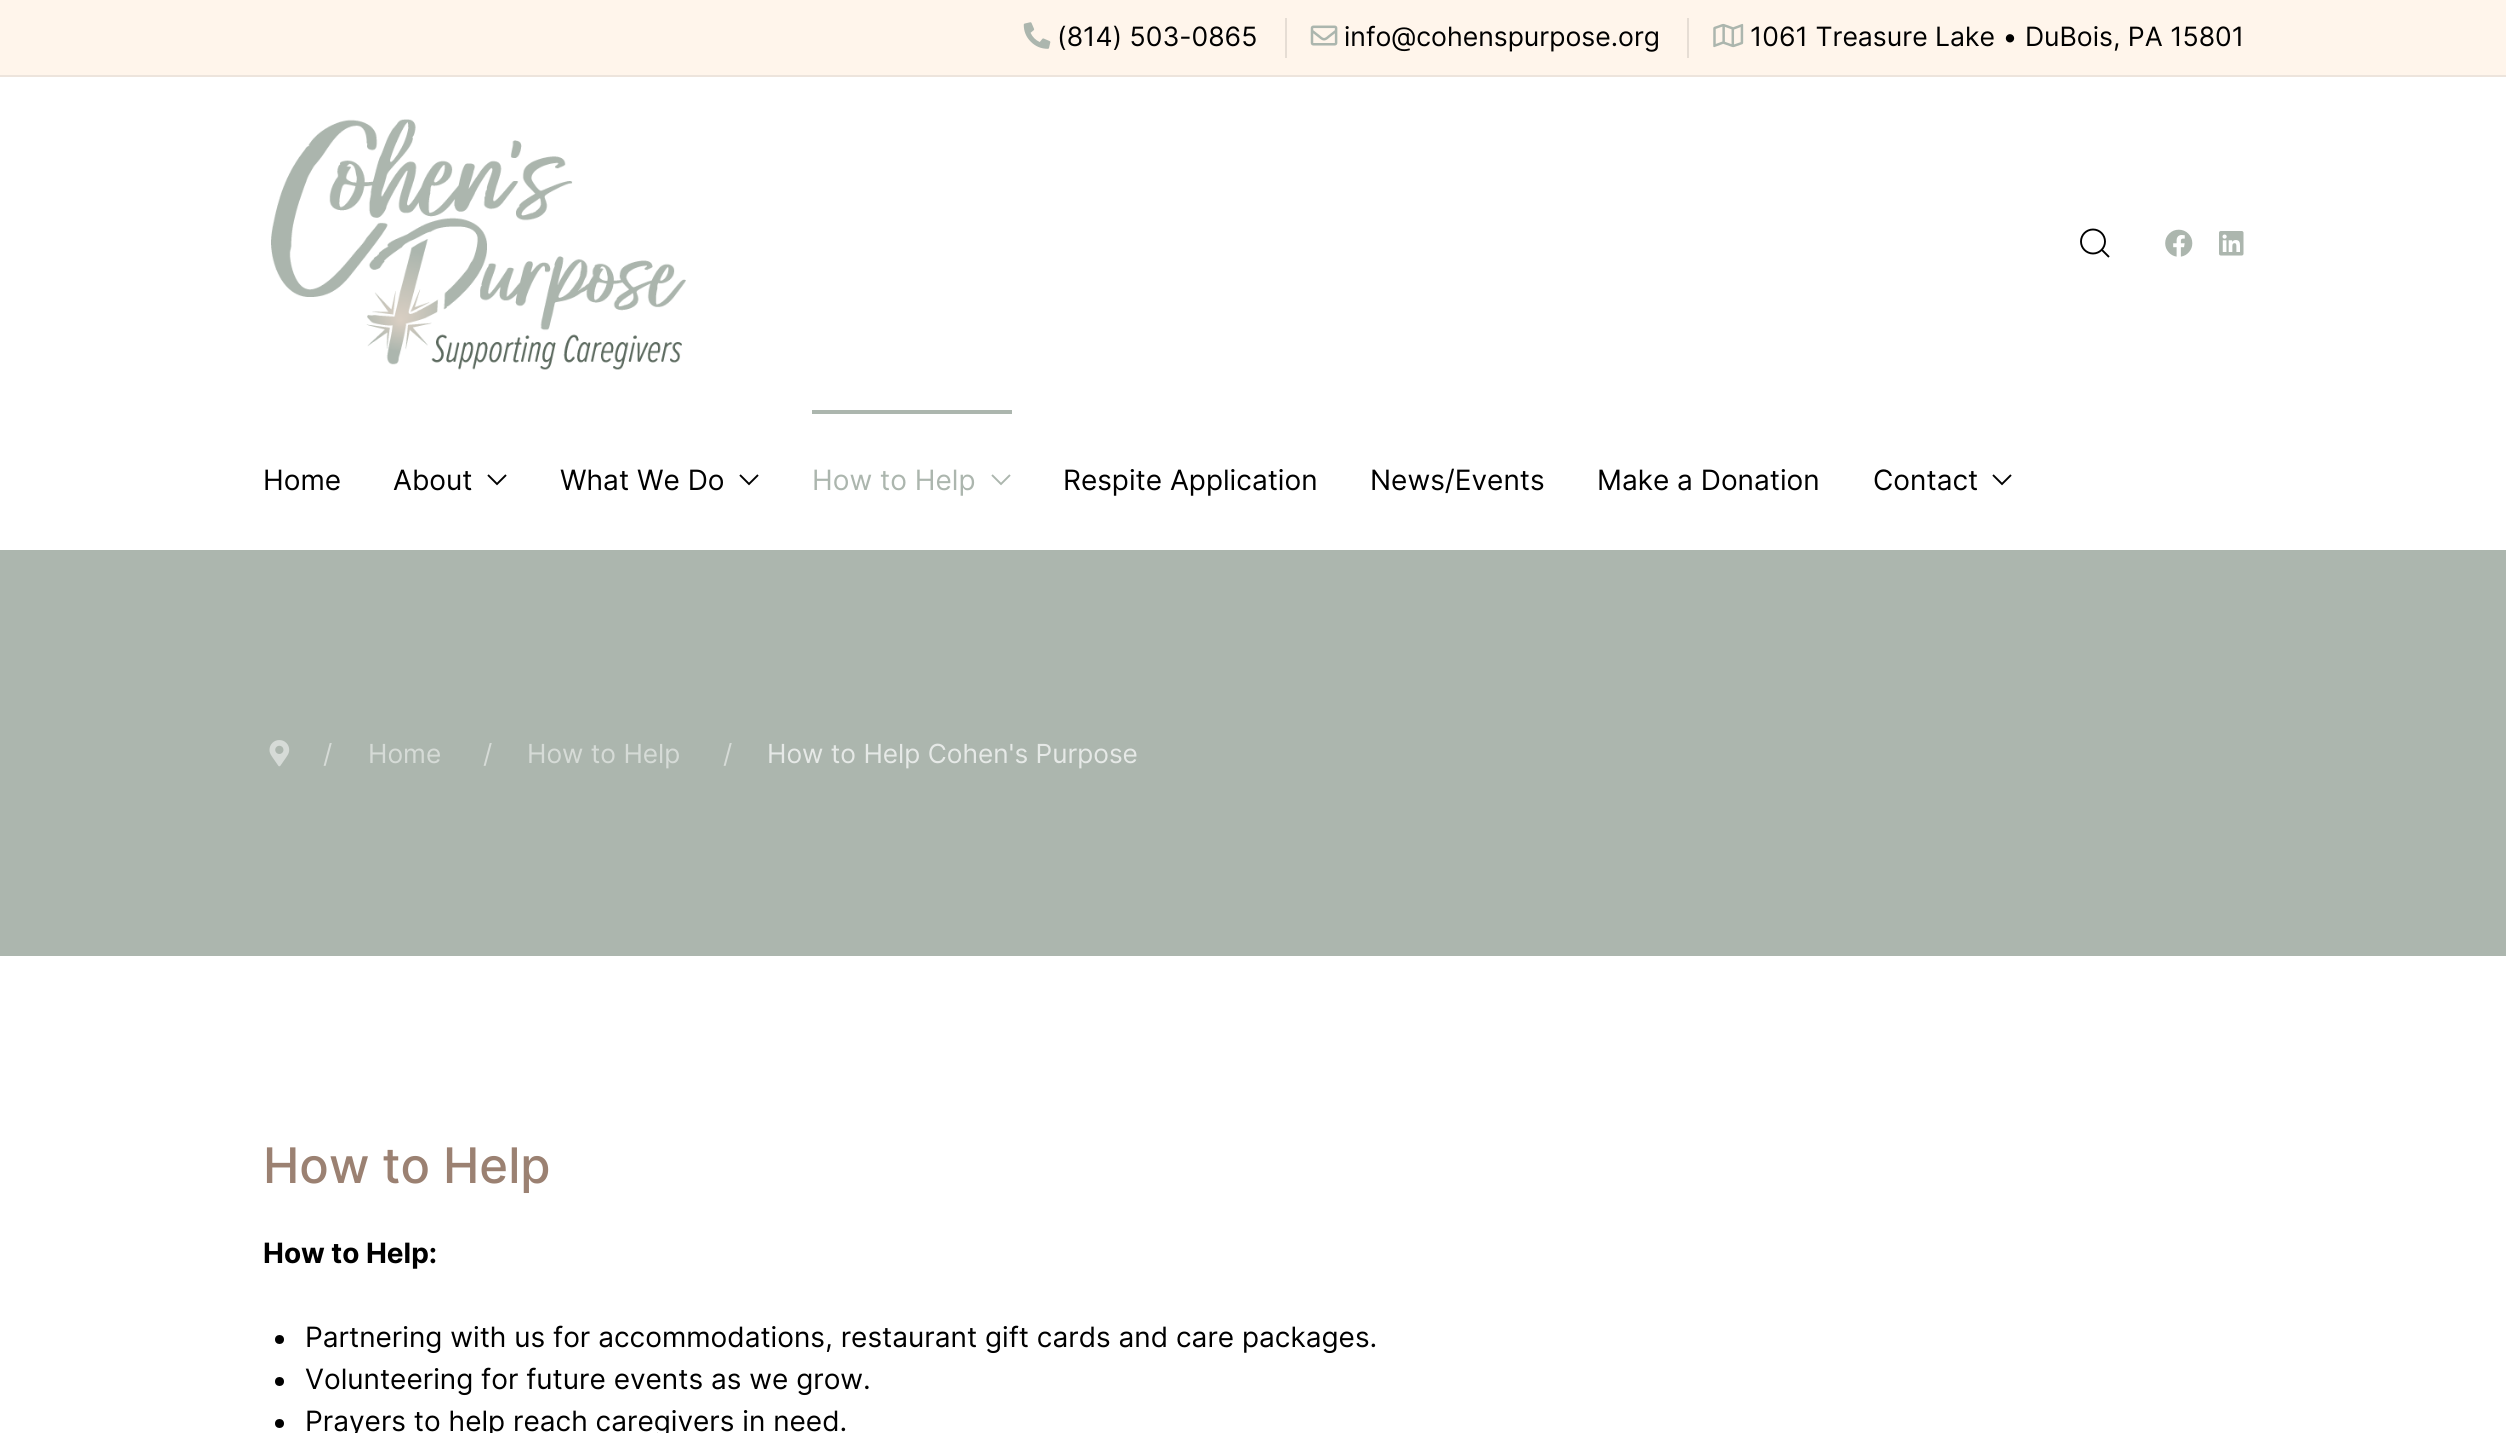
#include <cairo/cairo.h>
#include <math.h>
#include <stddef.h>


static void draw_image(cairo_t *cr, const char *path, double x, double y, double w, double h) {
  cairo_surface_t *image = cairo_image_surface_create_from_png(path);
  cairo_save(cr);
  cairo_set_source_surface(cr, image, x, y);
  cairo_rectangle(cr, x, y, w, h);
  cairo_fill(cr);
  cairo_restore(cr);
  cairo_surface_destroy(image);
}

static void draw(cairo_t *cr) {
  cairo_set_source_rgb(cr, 1, 1, 1);
  cairo_paint(cr);
  cairo_set_source_rgb(cr, 1, 245 / 255.0, 235 / 255.0);
  cairo_rectangle(cr, 0, 0, 2506, 75);
  cairo_fill(cr);
  cairo_set_source_rgb(cr, 237 / 255.0, 228 / 255.0, 220 / 255.0);
  cairo_rectangle(cr, 0, 75, 2506, 2);
  cairo_fill(cr);
  draw_image(cr, "images/1.png", 1023, 22, 28, 27);
  cairo_set_source_rgb(cr, 230 / 255.0, 221 / 255.0, 212 / 255.0);
  cairo_rectangle(cr, 1285, 18, 2, 40);
  cairo_fill(cr);
  draw_image(cr, "images/2.png", 1310, 25, 28, 21);
  cairo_rectangle(cr, 1687, 18, 2, 40);
  cairo_fill(cr);
  draw_image(cr, "images/3.png", 1713, 23, 31, 25);
  draw_image(cr, "images/4.png", 271, 119, 415, 251);
  cairo_arc(cr, 2093, 241.5, 12, 0, 2 * M_PI);
  cairo_set_source_rgb(cr, 0, 0, 0);
  cairo_set_line_width(cr, 1.9);
  cairo_stroke(cr);
  cairo_new_path(cr);
  cairo_move_to(cr, 2102, 250);
  cairo_line_to(cr, 2109, 257);
  cairo_close_path(cr);
  cairo_stroke(cr);
  draw_image(cr, "images/5.png", 2165, 229, 28, 28);
  draw_image(cr, "images/6.png", 2219, 231, 25, 25);
  cairo_new_path(cr);
  cairo_move_to(cr, 488, 475);
  cairo_line_to(cr, 497, 484);
  cairo_line_to(cr, 506, 475);
  cairo_stroke(cr);
  cairo_new_path(cr);
  cairo_move_to(cr, 740, 475);
  cairo_line_to(cr, 749, 484);
  cairo_line_to(cr, 758, 475);
  cairo_stroke(cr);
  cairo_set_source_rgb(cr, 172 / 255.0, 182 / 255.0, 174 / 255.0);
  cairo_rectangle(cr, 812, 410, 200, 4);
  cairo_fill(cr);
  cairo_new_path(cr);
  cairo_move_to(cr, 992, 475);
  cairo_line_to(cr, 1001, 484);
  cairo_line_to(cr, 1010, 475);
  cairo_stroke(cr);
  cairo_new_path(cr);
  cairo_move_to(cr, 1993, 475);
  cairo_line_to(cr, 2002, 484);
  cairo_line_to(cr, 2011, 475);
  cairo_set_source_rgb(cr, 0, 0, 0);
  cairo_stroke(cr);
  cairo_set_source_rgb(cr, 172 / 255.0, 182 / 255.0, 174 / 255.0);
  cairo_rectangle(cr, 0, 550, 2506, 406);
  cairo_fill(cr);
  draw_image(cr, "images/7.png", 269, 740, 21, 27);
  cairo_set_source_rgb(cr, 0, 0, 0);
  cairo_arc(cr, 279.5, 1339.5, 4.5, 0, 2 * M_PI);
  cairo_fill(cr);
  cairo_arc(cr, 279.5, 1381.5, 4.5, 0, 2 * M_PI);
  cairo_fill(cr);
  cairo_arc(cr, 279.5, 1423.5, 4.5, 0, 2 * M_PI);
  cairo_fill(cr);
  cairo_select_font_face(cr, "Inter", CAIRO_FONT_SLANT_NORMAL, CAIRO_FONT_WEIGHT_NORMAL);
  cairo_set_font_size(cr, 26.6);
  cairo_move_to(cr, 1057, 46);
  cairo_show_text(cr, "(814) 503-0865");
  cairo_move_to(cr, 1344, 46);
  cairo_show_text(cr, "info@cohenspurpose.org");
  cairo_move_to(cr, 1750, 46);
  cairo_show_text(cr, "1061 Treasure Lake • DuBois, PA 15801");
  cairo_set_font_size(cr, 28);
  cairo_move_to(cr, 263, 490);
  cairo_show_text(cr, "Home");
  cairo_move_to(cr, 393, 490);
  cairo_show_text(cr, "About");
  cairo_move_to(cr, 560, 490);
  cairo_show_text(cr, "What We Do");
  cairo_set_source_rgb(cr, 172 / 255.0, 182 / 255.0, 174 / 255.0);
  cairo_move_to(cr, 812, 490);
  cairo_show_text(cr, "How to Help");
  cairo_set_source_rgb(cr, 0, 0, 0);
  cairo_move_to(cr, 1063, 490);
  cairo_show_text(cr, "Respite Application");
  cairo_move_to(cr, 1370, 490);
  cairo_show_text(cr, "News/Events");
  cairo_move_to(cr, 1597, 490);
  cairo_show_text(cr, "Make a Donation");
  cairo_move_to(cr, 1873, 490);
  cairo_show_text(cr, "Contact");
  cairo_set_font_size(cr, 26.25);
  cairo_set_source_rgb(cr, 214 / 255.0, 219 / 255.0, 215 / 255.0);
  cairo_move_to(cr, 323, 763);
  cairo_show_text(cr, "/");
  cairo_move_to(cr, 368, 763);
  cairo_show_text(cr, "Home");
  cairo_move_to(cr, 483, 763);
  cairo_show_text(cr, "/");
  cairo_move_to(cr, 527, 763);
  cairo_show_text(cr, "How to Help");
  cairo_move_to(cr, 723, 763);
  cairo_show_text(cr, "/");
  cairo_set_source_rgb(cr, 230 / 255.0, 233 / 255.0, 231 / 255.0);
  cairo_move_to(cr, 767, 763);
  cairo_show_text(cr, "How to Help Cohen's Purpose");
  cairo_select_font_face(cr, "Inter Medium", CAIRO_FONT_SLANT_NORMAL, CAIRO_FONT_WEIGHT_NORMAL);
  cairo_set_font_size(cr, 49);
  cairo_set_source_rgb(cr, 155 / 255.0, 129 / 255.0, 114 / 255.0);
  cairo_move_to(cr, 263, 1183);
  cairo_show_text(cr, "How to Help");
  cairo_select_font_face(cr, "Inter", CAIRO_FONT_SLANT_NORMAL, CAIRO_FONT_WEIGHT_BOLD);
  cairo_set_font_size(cr, 28);
  cairo_set_source_rgb(cr, 0, 0, 0);
  cairo_move_to(cr, 263, 1263);
  cairo_show_text(cr, "How to Help:");
  cairo_select_font_face(cr, "Inter", CAIRO_FONT_SLANT_NORMAL, CAIRO_FONT_WEIGHT_NORMAL);
  cairo_move_to(cr, 305, 1347);
  cairo_show_text(cr, "Partnering with us for accommodations, restaurant gift cards and care packages.");
  cairo_move_to(cr, 305, 1389);
  cairo_show_text(cr, "Volunteering for future events as we grow.");
  cairo_move_to(cr, 305, 1431);
  cairo_show_text(cr, "Prayers to help reach caregivers in need.");
}

int main(void) {
  cairo_surface_t *surface = cairo_image_surface_create(CAIRO_FORMAT_RGB24, 2506, 1433);
  cairo_t *cr = cairo_create(surface);
  cairo_font_options_t *options = cairo_font_options_create();
  cairo_font_options_set_hint_metrics(options, CAIRO_HINT_METRICS_OFF);
  cairo_font_options_set_hint_style(options, CAIRO_HINT_STYLE_NONE);
  cairo_set_font_options(cr, options);
  cairo_set_miter_limit(cr, 4);
  draw(cr);
  cairo_surface_write_to_png(surface, "out.png");
  cairo_font_options_destroy(options);
  cairo_destroy(cr);
  cairo_surface_destroy(surface);
  return 0;
}
